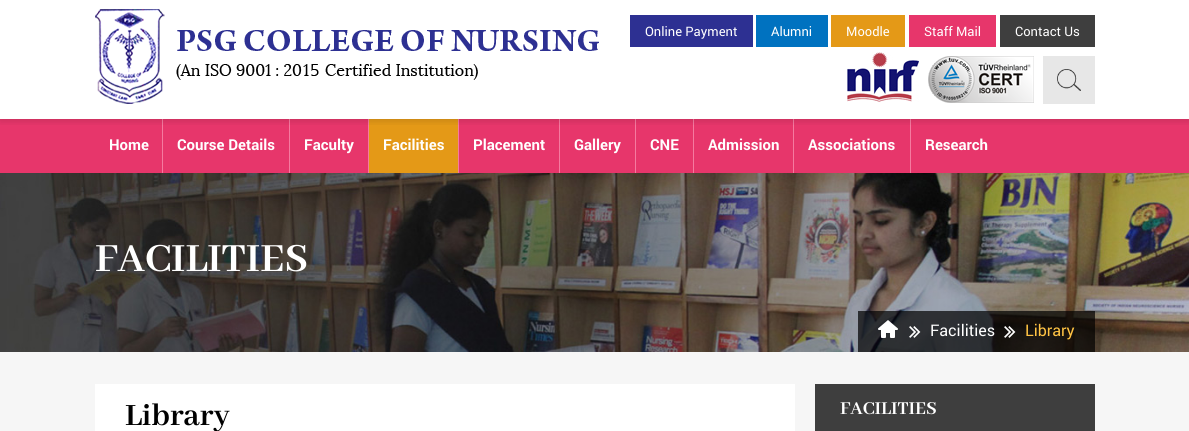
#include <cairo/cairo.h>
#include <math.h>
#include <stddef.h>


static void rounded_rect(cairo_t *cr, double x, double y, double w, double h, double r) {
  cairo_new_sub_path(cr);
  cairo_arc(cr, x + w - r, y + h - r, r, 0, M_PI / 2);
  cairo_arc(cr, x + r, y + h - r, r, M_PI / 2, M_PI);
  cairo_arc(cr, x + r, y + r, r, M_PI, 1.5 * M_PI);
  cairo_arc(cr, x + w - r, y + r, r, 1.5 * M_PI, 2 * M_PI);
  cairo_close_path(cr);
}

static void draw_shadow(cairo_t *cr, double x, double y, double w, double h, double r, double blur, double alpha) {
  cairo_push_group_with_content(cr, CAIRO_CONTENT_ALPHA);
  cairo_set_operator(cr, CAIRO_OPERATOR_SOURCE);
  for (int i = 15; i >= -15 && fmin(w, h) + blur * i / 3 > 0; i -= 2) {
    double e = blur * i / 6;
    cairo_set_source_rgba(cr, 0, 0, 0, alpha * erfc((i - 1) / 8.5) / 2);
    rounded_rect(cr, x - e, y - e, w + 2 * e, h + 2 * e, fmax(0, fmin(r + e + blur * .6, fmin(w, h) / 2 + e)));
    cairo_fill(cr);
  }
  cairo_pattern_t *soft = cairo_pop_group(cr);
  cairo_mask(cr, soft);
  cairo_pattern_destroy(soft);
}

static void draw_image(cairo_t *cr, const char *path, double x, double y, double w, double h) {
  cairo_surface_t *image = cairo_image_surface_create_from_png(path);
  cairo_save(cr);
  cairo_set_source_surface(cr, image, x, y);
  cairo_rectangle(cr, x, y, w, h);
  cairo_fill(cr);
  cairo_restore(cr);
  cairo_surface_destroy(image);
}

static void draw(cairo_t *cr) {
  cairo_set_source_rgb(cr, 246 / 255.0, 246 / 255.0, 246 / 255.0);
  cairo_paint(cr);
  cairo_set_source_rgb(cr, 1, 1, 1);
  cairo_rectangle(cr, 0, 0, 1189, 119);
  cairo_fill(cr);
  cairo_set_source_rgb(cr, 231 / 255.0, 54 / 255.0, 107 / 255.0);
  cairo_rectangle(cr, 0, 119, 1189, 54);
  cairo_fill(cr);
  cairo_set_source_rgb(cr, 245 / 255.0, 122 / 255.0, 159 / 255.0);
  cairo_rectangle(cr, 162, 119, 1, 54);
  cairo_fill(cr);
  cairo_rectangle(cr, 289, 119, 1, 54);
  cairo_fill(cr);
  cairo_rectangle(cr, 368, 119, 1, 54);
  cairo_fill(cr);
  cairo_set_source_rgb(cr, 228 / 255.0, 153 / 255.0, 23 / 255.0);
  cairo_rectangle(cr, 369, 119, 89, 54);
  cairo_fill(cr);
  cairo_set_source_rgb(cr, 245 / 255.0, 122 / 255.0, 159 / 255.0);
  cairo_rectangle(cr, 458, 119, 1, 54);
  cairo_fill(cr);
  cairo_rectangle(cr, 559, 119, 1, 54);
  cairo_fill(cr);
  cairo_rectangle(cr, 635, 119, 1, 54);
  cairo_fill(cr);
  cairo_rectangle(cr, 693, 119, 1, 54);
  cairo_fill(cr);
  cairo_rectangle(cr, 793, 119, 1, 54);
  cairo_fill(cr);
  cairo_rectangle(cr, 910, 119, 1, 54);
  cairo_fill(cr);
  cairo_save(cr);
  cairo_rectangle(cr, 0, 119, 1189, 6);
  cairo_clip(cr);
  cairo_set_source_rgb(cr, 0, 0, 0);
  draw_shadow(cr, 0, 0, 1189, 119, 0, 5, 0.2);
  cairo_restore(cr);
  draw_image(cr, "images/1.png", 95, 9, 504, 95);
  cairo_set_source_rgb(cr, 45 / 255.0, 48 / 255.0, 146 / 255.0);
  cairo_rectangle(cr, 630, 15, 123, 32);
  cairo_fill(cr);
  cairo_set_source_rgb(cr, 0, 114 / 255.0, 192 / 255.0);
  cairo_rectangle(cr, 756, 15, 72, 32);
  cairo_fill(cr);
  cairo_set_source_rgb(cr, 228 / 255.0, 153 / 255.0, 23 / 255.0);
  cairo_rectangle(cr, 831, 15, 74, 32);
  cairo_fill(cr);
  cairo_set_source_rgb(cr, 231 / 255.0, 54 / 255.0, 107 / 255.0);
  cairo_rectangle(cr, 909, 15, 87, 32);
  cairo_fill(cr);
  cairo_set_source_rgb(cr, 62 / 255.0, 62 / 255.0, 62 / 255.0);
  cairo_rectangle(cr, 1000, 15, 95, 32);
  cairo_fill(cr);
  draw_image(cr, "images/2.png", 847, 52, 72, 50);
  draw_image(cr, "images/3.png", 928, 56, 106, 47);
  cairo_set_source_rgb(cr, 231 / 255.0, 231 / 255.0, 231 / 255.0);
  cairo_rectangle(cr, 1043, 56, 52, 48);
  cairo_fill(cr);
  draw_image(cr, "images/4.png", 1057, 69, 24, 22);
  draw_image(cr, "images/5.png", 0, 173, 1189, 179);
  cairo_set_source_rgba(cr, 0, 0, 0, 0.7);
  cairo_rectangle(cr, 858, 311, 237, 41);
  cairo_fill(cr);
  draw_image(cr, "images/6.png", 878, 320, 20, 18);
  draw_image(cr, "images/7.png", 909, 326, 12, 12);
  draw_image(cr, "images/8.png", 1004, 326, 12, 12);
  cairo_set_source_rgb(cr, 1, 1, 1);
  cairo_rectangle(cr, 95, 384, 700, 47);
  cairo_fill(cr);
  cairo_set_source_rgb(cr, 62 / 255.0, 62 / 255.0, 62 / 255.0);
  cairo_rectangle(cr, 815, 384, 280, 47);
  cairo_fill(cr);
  cairo_select_font_face(cr, "Roboto", CAIRO_FONT_SLANT_NORMAL, CAIRO_FONT_WEIGHT_NORMAL);
  cairo_set_font_size(cr, 13);
  cairo_set_source_rgb(cr, 1, 1, 1);
  cairo_move_to(cr, 645, 36);
  cairo_show_text(cr, "Online Payment");
  cairo_move_to(cr, 771, 36);
  cairo_show_text(cr, "Alumni");
  cairo_move_to(cr, 846, 36);
  cairo_show_text(cr, "Moodle");
  cairo_move_to(cr, 924, 36);
  cairo_show_text(cr, "Staff Mail");
  cairo_move_to(cr, 1015, 36);
  cairo_show_text(cr, "Contact Us");
  cairo_select_font_face(cr, "Roboto", CAIRO_FONT_SLANT_NORMAL, CAIRO_FONT_WEIGHT_BOLD);
  cairo_set_font_size(cr, 15);
  cairo_move_to(cr, 109, 150);
  cairo_show_text(cr, "Home");
  cairo_move_to(cr, 177, 150);
  cairo_show_text(cr, "Course Details");
  cairo_move_to(cr, 304, 150);
  cairo_show_text(cr, "Faculty");
  cairo_move_to(cr, 383, 150);
  cairo_show_text(cr, "Facilities");
  cairo_move_to(cr, 473, 150);
  cairo_show_text(cr, "Placement");
  cairo_move_to(cr, 574, 150);
  cairo_show_text(cr, "Gallery");
  cairo_move_to(cr, 650, 150);
  cairo_show_text(cr, "CNE");
  cairo_move_to(cr, 708, 150);
  cairo_show_text(cr, "Admission");
  cairo_move_to(cr, 808, 150);
  cairo_show_text(cr, "Associations");
  cairo_move_to(cr, 925, 150);
  cairo_show_text(cr, "Research");
  cairo_select_font_face(cr, "Abhaya Libre", CAIRO_FONT_SLANT_NORMAL, CAIRO_FONT_WEIGHT_BOLD);
  cairo_set_font_size(cr, 44);
  cairo_move_to(cr, 95, 271);
  cairo_show_text(cr, "FACILITIES");
  cairo_select_font_face(cr, "Roboto", CAIRO_FONT_SLANT_NORMAL, CAIRO_FONT_WEIGHT_NORMAL);
  cairo_set_font_size(cr, 16);
  cairo_move_to(cr, 930, 336);
  cairo_show_text(cr, "Facilities");
  cairo_set_source_rgb(cr, 1, 195 / 255.0, 67 / 255.0);
  cairo_move_to(cr, 1025, 336);
  cairo_show_text(cr, "Library");
  cairo_select_font_face(cr, "Abhaya Libre", CAIRO_FONT_SLANT_NORMAL, CAIRO_FONT_WEIGHT_BOLD);
  cairo_set_font_size(cr, 34);
  cairo_set_source_rgb(cr, 0, 0, 0);
  cairo_move_to(cr, 125, 425);
  cairo_show_text(cr, "Library");
  cairo_set_font_size(cr, 20);
  cairo_set_source_rgb(cr, 1, 1, 1);
  cairo_move_to(cr, 840, 414);
  cairo_show_text(cr, "FACILITIES");
}

int main(void) {
  cairo_surface_t *surface = cairo_image_surface_create(CAIRO_FORMAT_RGB24, 1189, 431);
  cairo_t *cr = cairo_create(surface);
  cairo_font_options_t *options = cairo_font_options_create();
  cairo_font_options_set_hint_metrics(options, CAIRO_HINT_METRICS_OFF);
  cairo_font_options_set_hint_style(options, CAIRO_HINT_STYLE_NONE);
  cairo_set_font_options(cr, options);
  cairo_set_miter_limit(cr, 4);
  draw(cr);
  cairo_surface_write_to_png(surface, "out.png");
  cairo_font_options_destroy(options);
  cairo_destroy(cr);
  cairo_surface_destroy(surface);
  return 0;
}
